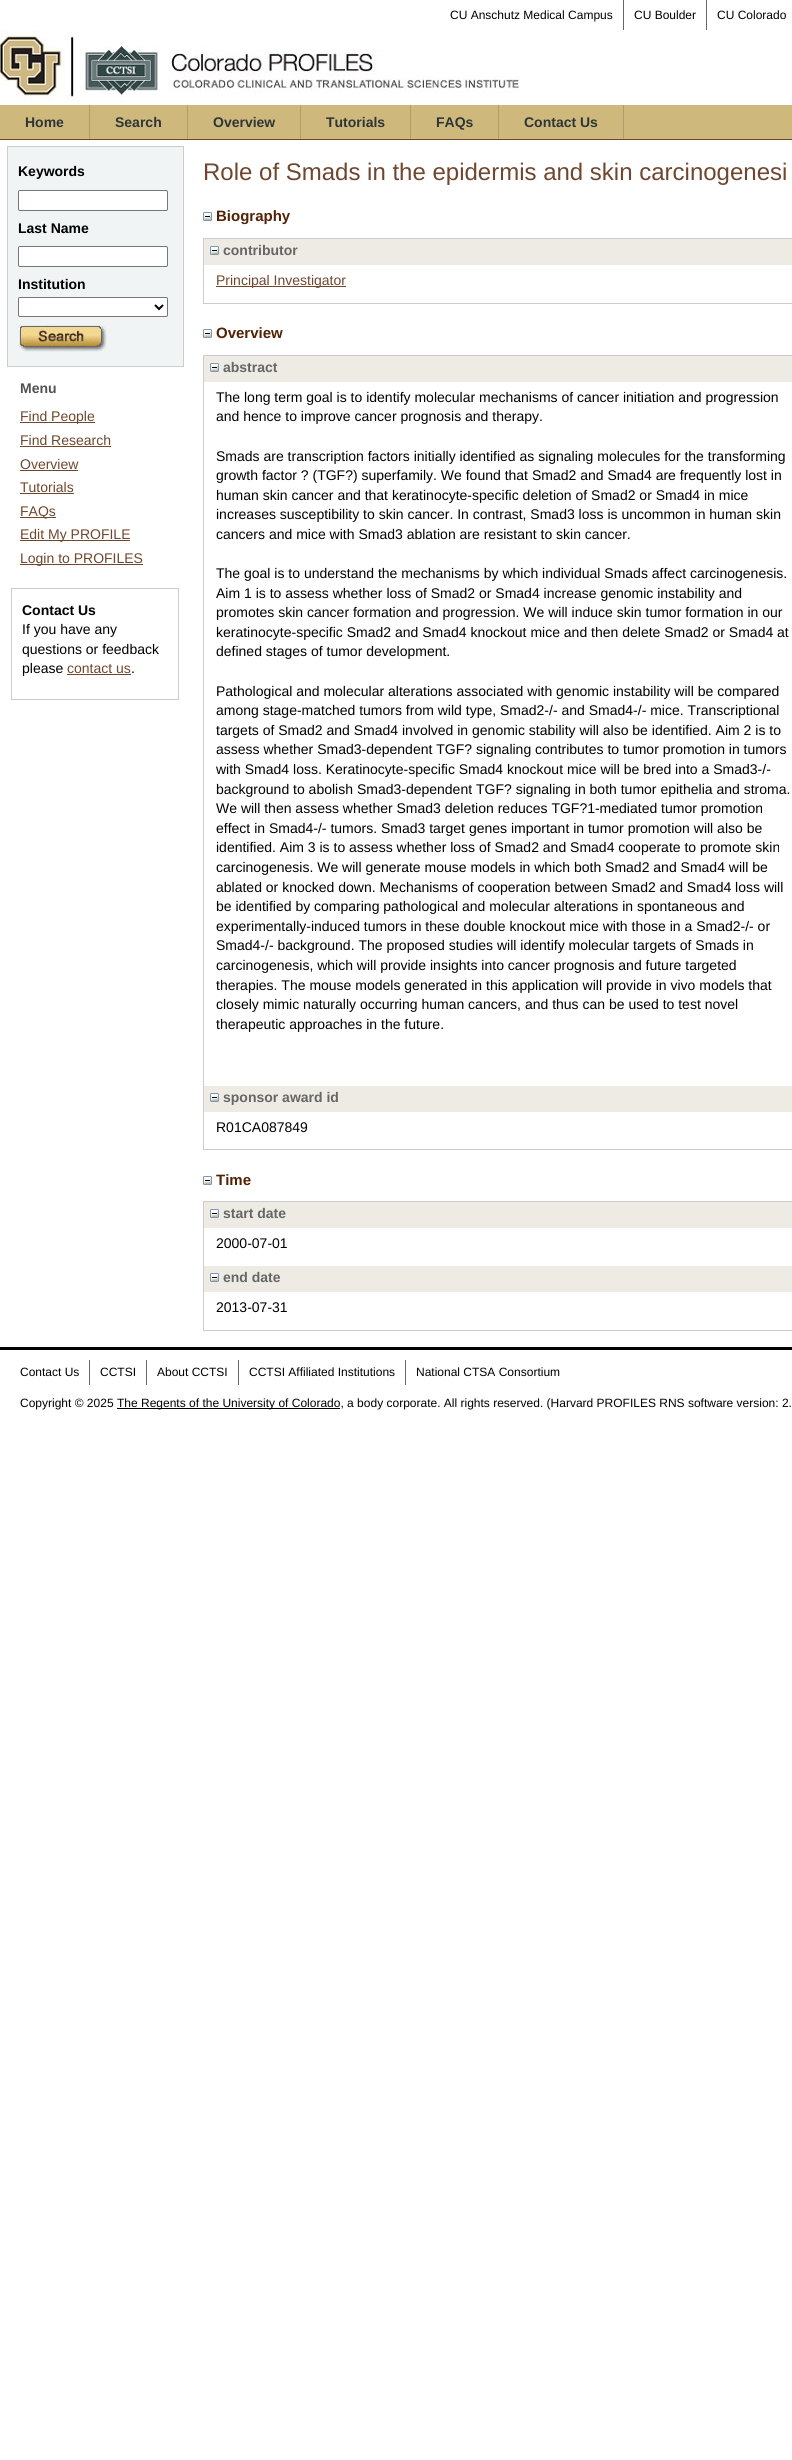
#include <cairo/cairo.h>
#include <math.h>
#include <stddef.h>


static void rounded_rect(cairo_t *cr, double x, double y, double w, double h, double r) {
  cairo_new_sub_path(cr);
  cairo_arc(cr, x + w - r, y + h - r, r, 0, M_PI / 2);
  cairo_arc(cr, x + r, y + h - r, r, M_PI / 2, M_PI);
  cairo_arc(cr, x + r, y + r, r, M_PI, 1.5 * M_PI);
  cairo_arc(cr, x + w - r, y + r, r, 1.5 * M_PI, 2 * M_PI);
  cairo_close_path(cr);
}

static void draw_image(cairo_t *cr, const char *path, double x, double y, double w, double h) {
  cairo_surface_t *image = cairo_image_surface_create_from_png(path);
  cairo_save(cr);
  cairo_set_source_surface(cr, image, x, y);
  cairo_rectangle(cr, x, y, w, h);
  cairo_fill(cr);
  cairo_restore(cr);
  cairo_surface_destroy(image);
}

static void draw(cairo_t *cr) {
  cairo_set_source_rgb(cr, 1, 1, 1);
  cairo_paint(cr);
  cairo_set_source_rgb(cr, 102 / 255.0, 102 / 255.0, 102 / 255.0);
  cairo_rectangle(cr, 623, 0, 1, 30);
  cairo_fill(cr);
  cairo_rectangle(cr, 706, 0, 1, 30);
  cairo_fill(cr);
  draw_image(cr, "images/1.png", 0, 30, 520, 75);
  cairo_set_source_rgb(cr, 207 / 255.0, 184 / 255.0, 124 / 255.0);
  cairo_rectangle(cr, 0, 105, 792, 34);
  cairo_fill(cr);
  cairo_set_source_rgb(cr, 111 / 255.0, 71 / 255.0, 46 / 255.0);
  cairo_rectangle(cr, 0, 139, 792, 1);
  cairo_fill(cr);
  cairo_set_source_rgb(cr, 179 / 255.0, 156 / 255.0, 104 / 255.0);
  cairo_rectangle(cr, 89, 105, 1, 34);
  cairo_fill(cr);
  cairo_rectangle(cr, 187, 105, 1, 34);
  cairo_fill(cr);
  cairo_rectangle(cr, 300, 105, 1, 34);
  cairo_fill(cr);
  cairo_rectangle(cr, 410, 105, 1, 34);
  cairo_fill(cr);
  cairo_rectangle(cr, 498, 105, 1, 34);
  cairo_fill(cr);
  cairo_rectangle(cr, 623, 105, 1, 34);
  cairo_fill(cr);
  cairo_set_source_rgb(cr, 240 / 255.0, 244 / 255.0, 244 / 255.0);
  cairo_rectangle(cr, 7.5, 146.5, 176, 220);
  cairo_fill_preserve(cr);
  cairo_set_source_rgb(cr, 204 / 255.0, 204 / 255.0, 204 / 255.0);
  cairo_set_line_width(cr, 1);
  cairo_stroke(cr);
  cairo_set_source_rgb(cr, 1, 1, 1);
  rounded_rect(cr, 18.5, 190.5, 149, 20, 1.5);
  cairo_fill_preserve(cr);
  cairo_set_source_rgb(cr, 118 / 255.0, 118 / 255.0, 118 / 255.0);
  cairo_stroke(cr);
  cairo_set_source_rgb(cr, 1, 1, 1);
  rounded_rect(cr, 18.5, 246.5, 149, 20, 1.5);
  cairo_fill_preserve(cr);
  cairo_set_source_rgb(cr, 118 / 255.0, 118 / 255.0, 118 / 255.0);
  cairo_stroke(cr);
  cairo_set_source_rgb(cr, 1, 1, 1);
  rounded_rect(cr, 18.5, 297.5, 149, 19, 1.5);
  cairo_fill_preserve(cr);
  cairo_set_source_rgb(cr, 118 / 255.0, 118 / 255.0, 118 / 255.0);
  cairo_stroke(cr);
  cairo_new_path(cr);
  cairo_move_to(cr, 155, 305);
  cairo_line_to(cr, 159, 309);
  cairo_line_to(cr, 163, 305);
  cairo_set_source_rgb(cr, 0, 0, 0);
  cairo_set_line_width(cr, 2);
  cairo_stroke(cr);
  draw_image(cr, "images/2.png", 18, 325, 89, 27);
  cairo_set_source_rgb(cr, 111 / 255.0, 71 / 255.0, 46 / 255.0);
  cairo_rectangle(cr, 20, 422, 75, 1);
  cairo_fill(cr);
  cairo_rectangle(cr, 20, 446, 91, 1);
  cairo_fill(cr);
  cairo_rectangle(cr, 20, 470, 58, 1);
  cairo_fill(cr);
  cairo_rectangle(cr, 20, 493, 54, 1);
  cairo_fill(cr);
  cairo_rectangle(cr, 20, 517, 36, 1);
  cairo_fill(cr);
  cairo_rectangle(cr, 20, 540, 110, 1);
  cairo_fill(cr);
  cairo_rectangle(cr, 20, 564, 123, 1);
  cairo_fill(cr);
  cairo_rectangle(cr, 11.5, 588.5, 167, 111);
  cairo_set_source_rgb(cr, 204 / 255.0, 204 / 255.0, 204 / 255.0);
  cairo_set_line_width(cr, 1);
  cairo_stroke(cr);
  cairo_set_source_rgb(cr, 111 / 255.0, 71 / 255.0, 46 / 255.0);
  cairo_rectangle(cr, 67, 674, 64, 1);
  cairo_fill(cr);
  draw_image(cr, "images/3.png", 203, 212, 9, 9);
  cairo_rectangle(cr, 203.5, 238.5, 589, 65);
  cairo_set_source_rgb(cr, 204 / 255.0, 204 / 255.0, 204 / 255.0);
  cairo_stroke(cr);
  cairo_set_source_rgb(cr, 238 / 255.0, 235 / 255.0, 229 / 255.0);
  cairo_rectangle(cr, 204, 239, 588, 26);
  cairo_fill(cr);
  draw_image(cr, "images/3.png", 210, 246, 9, 9);
  cairo_set_source_rgb(cr, 111 / 255.0, 71 / 255.0, 46 / 255.0);
  cairo_rectangle(cr, 216, 286, 130, 1);
  cairo_fill(cr);
  draw_image(cr, "images/3.png", 203, 329, 9, 9);
  cairo_rectangle(cr, 203.5, 355.5, 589, 794);
  cairo_set_source_rgb(cr, 204 / 255.0, 204 / 255.0, 204 / 255.0);
  cairo_stroke(cr);
  cairo_set_source_rgb(cr, 238 / 255.0, 235 / 255.0, 229 / 255.0);
  cairo_rectangle(cr, 204, 356, 588, 26);
  cairo_fill(cr);
  draw_image(cr, "images/3.png", 210, 363, 9, 9);
  cairo_rectangle(cr, 204, 1086, 588, 26);
  cairo_fill(cr);
  draw_image(cr, "images/3.png", 210, 1093, 9, 9);
  draw_image(cr, "images/3.png", 203, 1176, 9, 9);
  cairo_rectangle(cr, 203.5, 1201.5, 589, 129);
  cairo_set_source_rgb(cr, 204 / 255.0, 204 / 255.0, 204 / 255.0);
  cairo_stroke(cr);
  cairo_set_source_rgb(cr, 238 / 255.0, 235 / 255.0, 229 / 255.0);
  cairo_rectangle(cr, 204, 1202, 588, 26);
  cairo_fill(cr);
  draw_image(cr, "images/3.png", 210, 1209, 9, 9);
  cairo_rectangle(cr, 204, 1266, 588, 26);
  cairo_fill(cr);
  draw_image(cr, "images/3.png", 210, 1273, 9, 9);
  cairo_set_source_rgb(cr, 0, 0, 0);
  cairo_rectangle(cr, 0, 1347, 792, 3);
  cairo_fill(cr);
  cairo_set_source_rgb(cr, 102 / 255.0, 102 / 255.0, 102 / 255.0);
  cairo_rectangle(cr, 89, 1360, 1, 25);
  cairo_fill(cr);
  cairo_rectangle(cr, 146, 1360, 1, 25);
  cairo_fill(cr);
  cairo_rectangle(cr, 238, 1360, 1, 25);
  cairo_fill(cr);
  cairo_rectangle(cr, 405, 1360, 1, 25);
  cairo_fill(cr);
  cairo_set_source_rgb(cr, 0, 0, 0);
  cairo_rectangle(cr, 117, 1408, 223, 1);
  cairo_fill(cr);
  cairo_select_font_face(cr, "Liberation Sans", CAIRO_FONT_SLANT_NORMAL, CAIRO_FONT_WEIGHT_NORMAL);
  cairo_set_font_size(cr, 12);
  cairo_move_to(cr, 450, 19);
  cairo_show_text(cr, "CU Anschutz Medical Campus");
  cairo_move_to(cr, 634, 19);
  cairo_show_text(cr, "CU Boulder");
  cairo_move_to(cr, 717, 19);
  cairo_show_text(cr, "CU Colorado");
  cairo_select_font_face(cr, "Liberation Sans", CAIRO_FONT_SLANT_NORMAL, CAIRO_FONT_WEIGHT_BOLD);
  cairo_set_font_size(cr, 14);
  cairo_set_source_rgb(cr, 45 / 255.0, 54 / 255.0, 54 / 255.0);
  cairo_move_to(cr, 25, 127);
  cairo_show_text(cr, "Home");
  cairo_move_to(cr, 115, 127);
  cairo_show_text(cr, "Search");
  cairo_move_to(cr, 213, 127);
  cairo_show_text(cr, "Overview");
  cairo_move_to(cr, 326, 127);
  cairo_show_text(cr, "Tutorials");
  cairo_move_to(cr, 436, 127);
  cairo_show_text(cr, "FAQs");
  cairo_move_to(cr, 524, 127);
  cairo_show_text(cr, "Contact Us");
  cairo_set_source_rgb(cr, 0, 0, 0);
  cairo_move_to(cr, 18, 176);
  cairo_show_text(cr, "Keywords");
  cairo_move_to(cr, 18, 233);
  cairo_show_text(cr, "Last Name");
  cairo_move_to(cr, 18, 289);
  cairo_show_text(cr, "Institution");
  cairo_set_source_rgb(cr, 82 / 255.0, 82 / 255.0, 82 / 255.0);
  cairo_move_to(cr, 20, 393);
  cairo_show_text(cr, "Menu");
  cairo_select_font_face(cr, "Liberation Sans", CAIRO_FONT_SLANT_NORMAL, CAIRO_FONT_WEIGHT_NORMAL);
  cairo_set_source_rgb(cr, 111 / 255.0, 71 / 255.0, 46 / 255.0);
  cairo_move_to(cr, 20, 421);
  cairo_show_text(cr, "Find People");
  cairo_move_to(cr, 20, 445);
  cairo_show_text(cr, "Find Research");
  cairo_move_to(cr, 20, 469);
  cairo_show_text(cr, "Overview");
  cairo_move_to(cr, 20, 492);
  cairo_show_text(cr, "Tutorials");
  cairo_move_to(cr, 20, 516);
  cairo_show_text(cr, "FAQs");
  cairo_move_to(cr, 20, 539);
  cairo_show_text(cr, "Edit My PROFILE");
  cairo_move_to(cr, 20, 563);
  cairo_show_text(cr, "Login to PROFILES");
  cairo_select_font_face(cr, "Liberation Sans", CAIRO_FONT_SLANT_NORMAL, CAIRO_FONT_WEIGHT_BOLD);
  cairo_set_source_rgb(cr, 0, 0, 0);
  cairo_move_to(cr, 22, 615);
  cairo_show_text(cr, "Contact Us");
  cairo_select_font_face(cr, "Liberation Sans", CAIRO_FONT_SLANT_NORMAL, CAIRO_FONT_WEIGHT_NORMAL);
  cairo_move_to(cr, 22, 634);
  cairo_show_text(cr, "If you have any");
  cairo_move_to(cr, 22, 654);
  cairo_show_text(cr, "questions or feedback");
  cairo_move_to(cr, 22, 673);
  cairo_show_text(cr, "please");
  cairo_set_source_rgb(cr, 111 / 255.0, 71 / 255.0, 46 / 255.0);
  cairo_move_to(cr, 67, 673);
  cairo_show_text(cr, "contact us");
  cairo_set_source_rgb(cr, 0, 0, 0);
  cairo_move_to(cr, 131, 673);
  cairo_show_text(cr, ".");
  cairo_set_font_size(cr, 24);
  cairo_set_source_rgb(cr, 111 / 255.0, 71 / 255.0, 46 / 255.0);
  cairo_move_to(cr, 203, 180);
  cairo_show_text(cr, "Role of Smads in the epidermis and skin carcinogenesi");
  cairo_select_font_face(cr, "Liberation Sans", CAIRO_FONT_SLANT_NORMAL, CAIRO_FONT_WEIGHT_BOLD);
  cairo_set_font_size(cr, 15);
  cairo_set_source_rgb(cr, 82 / 255.0, 34 / 255.0, 4 / 255.0);
  cairo_move_to(cr, 216, 221);
  cairo_show_text(cr, "Biography");
  cairo_set_font_size(cr, 14);
  cairo_set_source_rgb(cr, 102 / 255.0, 102 / 255.0, 102 / 255.0);
  cairo_move_to(cr, 223, 255);
  cairo_show_text(cr, "contributor");
  cairo_select_font_face(cr, "Liberation Sans", CAIRO_FONT_SLANT_NORMAL, CAIRO_FONT_WEIGHT_NORMAL);
  cairo_set_source_rgb(cr, 111 / 255.0, 71 / 255.0, 46 / 255.0);
  cairo_move_to(cr, 216, 285);
  cairo_show_text(cr, "Principal Investigator");
  cairo_select_font_face(cr, "Liberation Sans", CAIRO_FONT_SLANT_NORMAL, CAIRO_FONT_WEIGHT_BOLD);
  cairo_set_font_size(cr, 15);
  cairo_set_source_rgb(cr, 82 / 255.0, 34 / 255.0, 4 / 255.0);
  cairo_move_to(cr, 216, 338);
  cairo_show_text(cr, "Overview");
  cairo_set_font_size(cr, 14);
  cairo_set_source_rgb(cr, 102 / 255.0, 102 / 255.0, 102 / 255.0);
  cairo_move_to(cr, 223, 372);
  cairo_show_text(cr, "abstract");
  cairo_select_font_face(cr, "Liberation Sans", CAIRO_FONT_SLANT_NORMAL, CAIRO_FONT_WEIGHT_NORMAL);
  cairo_set_source_rgb(cr, 0, 0, 0);
  cairo_move_to(cr, 216, 402);
  cairo_show_text(cr, "The long term goal is to identify molecular mechanisms of cancer initiation and progression");
  cairo_move_to(cr, 216, 421);
  cairo_show_text(cr, "and hence to improve cancer prognosis and therapy.");
  cairo_move_to(cr, 216, 461);
  cairo_show_text(cr, "Smads are transcription factors initially identified as signaling molecules for the transforming");
  cairo_move_to(cr, 216, 480);
  cairo_show_text(cr, "growth factor ? (TGF?) superfamily. We found that Smad2 and Smad4 are frequently lost in");
  cairo_move_to(cr, 216, 500);
  cairo_show_text(cr, "human skin cancer and that keratinocyte-specific deletion of Smad2 or Smad4 in mice");
  cairo_move_to(cr, 216, 519);
  cairo_show_text(cr, "increases susceptibility to skin cancer. In contrast, Smad3 loss is uncommon in human skin");
  cairo_move_to(cr, 216, 539);
  cairo_show_text(cr, "cancers and mice with Smad3 ablation are resistant to skin cancer.");
  cairo_move_to(cr, 216, 578);
  cairo_show_text(cr, "The goal is to understand the mechanisms by which individual Smads affect carcinogenesis.");
  cairo_move_to(cr, 216, 598);
  cairo_show_text(cr, "Aim 1 is to assess whether loss of Smad2 or Smad4 increase genomic instability and");
  cairo_move_to(cr, 216, 617);
  cairo_show_text(cr, "promotes skin cancer formation and progression. We will induce skin tumor formation in our");
  cairo_move_to(cr, 216, 637);
  cairo_show_text(cr, "keratinocyte-specific Smad2 and Smad4 knockout mice and then delete Smad2 or Smad4 at");
  cairo_move_to(cr, 216, 656);
  cairo_show_text(cr, "defined stages of tumor development.");
  cairo_move_to(cr, 216, 696);
  cairo_show_text(cr, "Pathological and molecular alterations associated with genomic instability will be compared");
  cairo_move_to(cr, 216, 715);
  cairo_show_text(cr, "among stage-matched tumors from wild type, Smad2-/- and Smad4-/- mice. Transcriptional");
  cairo_move_to(cr, 216, 735);
  cairo_show_text(cr, "targets of Smad2 and Smad4 involved in genomic stability will also be identified. Aim 2 is to");
  cairo_move_to(cr, 216, 754);
  cairo_show_text(cr, "assess whether Smad3-dependent TGF? signaling contributes to tumor promotion in tumors");
  cairo_move_to(cr, 216, 774);
  cairo_show_text(cr, "with Smad4 loss. Keratinocyte-specific Smad4 knockout mice will be bred into a Smad3-/-");
  cairo_move_to(cr, 216, 794);
  cairo_show_text(cr, "background to abolish Smad3-dependent TGF? signaling in both tumor epithelia and stroma.");
  cairo_move_to(cr, 216, 813);
  cairo_show_text(cr, "We will then assess whether Smad3 deletion reduces TGF?1-mediated tumor promotion");
  cairo_move_to(cr, 216, 833);
  cairo_show_text(cr, "effect in Smad4-/- tumors. Smad3 target genes important in tumor promotion will also be");
  cairo_move_to(cr, 216, 852);
  cairo_show_text(cr, "identified. Aim 3 is to assess whether loss of Smad2 and Smad4 cooperate to promote skin");
  cairo_move_to(cr, 216, 872);
  cairo_show_text(cr, "carcinogenesis. We will generate mouse models in which both Smad2 and Smad4 will be");
  cairo_move_to(cr, 216, 892);
  cairo_show_text(cr, "ablated or knocked down. Mechanisms of cooperation between Smad2 and Smad4 loss will");
  cairo_move_to(cr, 216, 911);
  cairo_show_text(cr, "be identified by comparing pathological and molecular alterations in spontaneous and");
  cairo_move_to(cr, 216, 931);
  cairo_show_text(cr, "experimentally-induced tumors in these double knockout mice with those in a Smad2-/- or");
  cairo_move_to(cr, 216, 950);
  cairo_show_text(cr, "Smad4-/- background. The proposed studies will identify molecular targets of Smads in");
  cairo_move_to(cr, 216, 970);
  cairo_show_text(cr, "carcinogenesis, which will provide insights into cancer prognosis and future targeted");
  cairo_move_to(cr, 216, 990);
  cairo_show_text(cr, "therapies. The mouse models generated in this application will provide in vivo models that");
  cairo_move_to(cr, 216, 1009);
  cairo_show_text(cr, "closely mimic naturally occurring human cancers, and thus can be used to test novel");
  cairo_move_to(cr, 216, 1029);
  cairo_show_text(cr, "therapeutic approaches in the future.");
  cairo_select_font_face(cr, "Liberation Sans", CAIRO_FONT_SLANT_NORMAL, CAIRO_FONT_WEIGHT_BOLD);
  cairo_set_source_rgb(cr, 102 / 255.0, 102 / 255.0, 102 / 255.0);
  cairo_move_to(cr, 223, 1102);
  cairo_show_text(cr, "sponsor award id");
  cairo_select_font_face(cr, "Liberation Sans", CAIRO_FONT_SLANT_NORMAL, CAIRO_FONT_WEIGHT_NORMAL);
  cairo_set_source_rgb(cr, 0, 0, 0);
  cairo_move_to(cr, 216, 1132);
  cairo_show_text(cr, "R01CA087849");
  cairo_select_font_face(cr, "Liberation Sans", CAIRO_FONT_SLANT_NORMAL, CAIRO_FONT_WEIGHT_BOLD);
  cairo_set_font_size(cr, 15);
  cairo_set_source_rgb(cr, 82 / 255.0, 34 / 255.0, 4 / 255.0);
  cairo_move_to(cr, 216, 1185);
  cairo_show_text(cr, "Time");
  cairo_set_font_size(cr, 14);
  cairo_set_source_rgb(cr, 102 / 255.0, 102 / 255.0, 102 / 255.0);
  cairo_move_to(cr, 223, 1218);
  cairo_show_text(cr, "start date");
  cairo_select_font_face(cr, "Liberation Sans", CAIRO_FONT_SLANT_NORMAL, CAIRO_FONT_WEIGHT_NORMAL);
  cairo_set_source_rgb(cr, 0, 0, 0);
  cairo_move_to(cr, 216, 1248);
  cairo_show_text(cr, "2000-07-01");
  cairo_select_font_face(cr, "Liberation Sans", CAIRO_FONT_SLANT_NORMAL, CAIRO_FONT_WEIGHT_BOLD);
  cairo_set_source_rgb(cr, 102 / 255.0, 102 / 255.0, 102 / 255.0);
  cairo_move_to(cr, 223, 1282);
  cairo_show_text(cr, "end date");
  cairo_select_font_face(cr, "Liberation Sans", CAIRO_FONT_SLANT_NORMAL, CAIRO_FONT_WEIGHT_NORMAL);
  cairo_set_source_rgb(cr, 0, 0, 0);
  cairo_move_to(cr, 216, 1312);
  cairo_show_text(cr, "2013-07-31");
  cairo_set_font_size(cr, 12);
  cairo_move_to(cr, 20, 1376);
  cairo_show_text(cr, "Contact Us");
  cairo_move_to(cr, 100, 1376);
  cairo_show_text(cr, "CCTSI");
  cairo_move_to(cr, 157, 1376);
  cairo_show_text(cr, "About CCTSI");
  cairo_move_to(cr, 249, 1376);
  cairo_show_text(cr, "CCTSI Affiliated Institutions");
  cairo_move_to(cr, 416, 1376);
  cairo_show_text(cr, "National CTSA Consortium");
  cairo_move_to(cr, 20, 1407);
  cairo_show_text(cr, "Copyright © 2025");
  cairo_move_to(cr, 117, 1407);
  cairo_show_text(cr, "The Regents of the University of Colorado, a body corporate. All rights reserved. (Harvard PROFILES RNS software version: 2.");
}

int main(void) {
  cairo_surface_t *surface = cairo_image_surface_create(CAIRO_FORMAT_RGB24, 792, 2460);
  cairo_t *cr = cairo_create(surface);
  cairo_font_options_t *options = cairo_font_options_create();
  cairo_font_options_set_hint_metrics(options, CAIRO_HINT_METRICS_OFF);
  cairo_font_options_set_hint_style(options, CAIRO_HINT_STYLE_NONE);
  cairo_set_font_options(cr, options);
  cairo_set_miter_limit(cr, 4);
  draw(cr);
  cairo_surface_write_to_png(surface, "out.png");
  cairo_font_options_destroy(options);
  cairo_destroy(cr);
  cairo_surface_destroy(surface);
  return 0;
}
